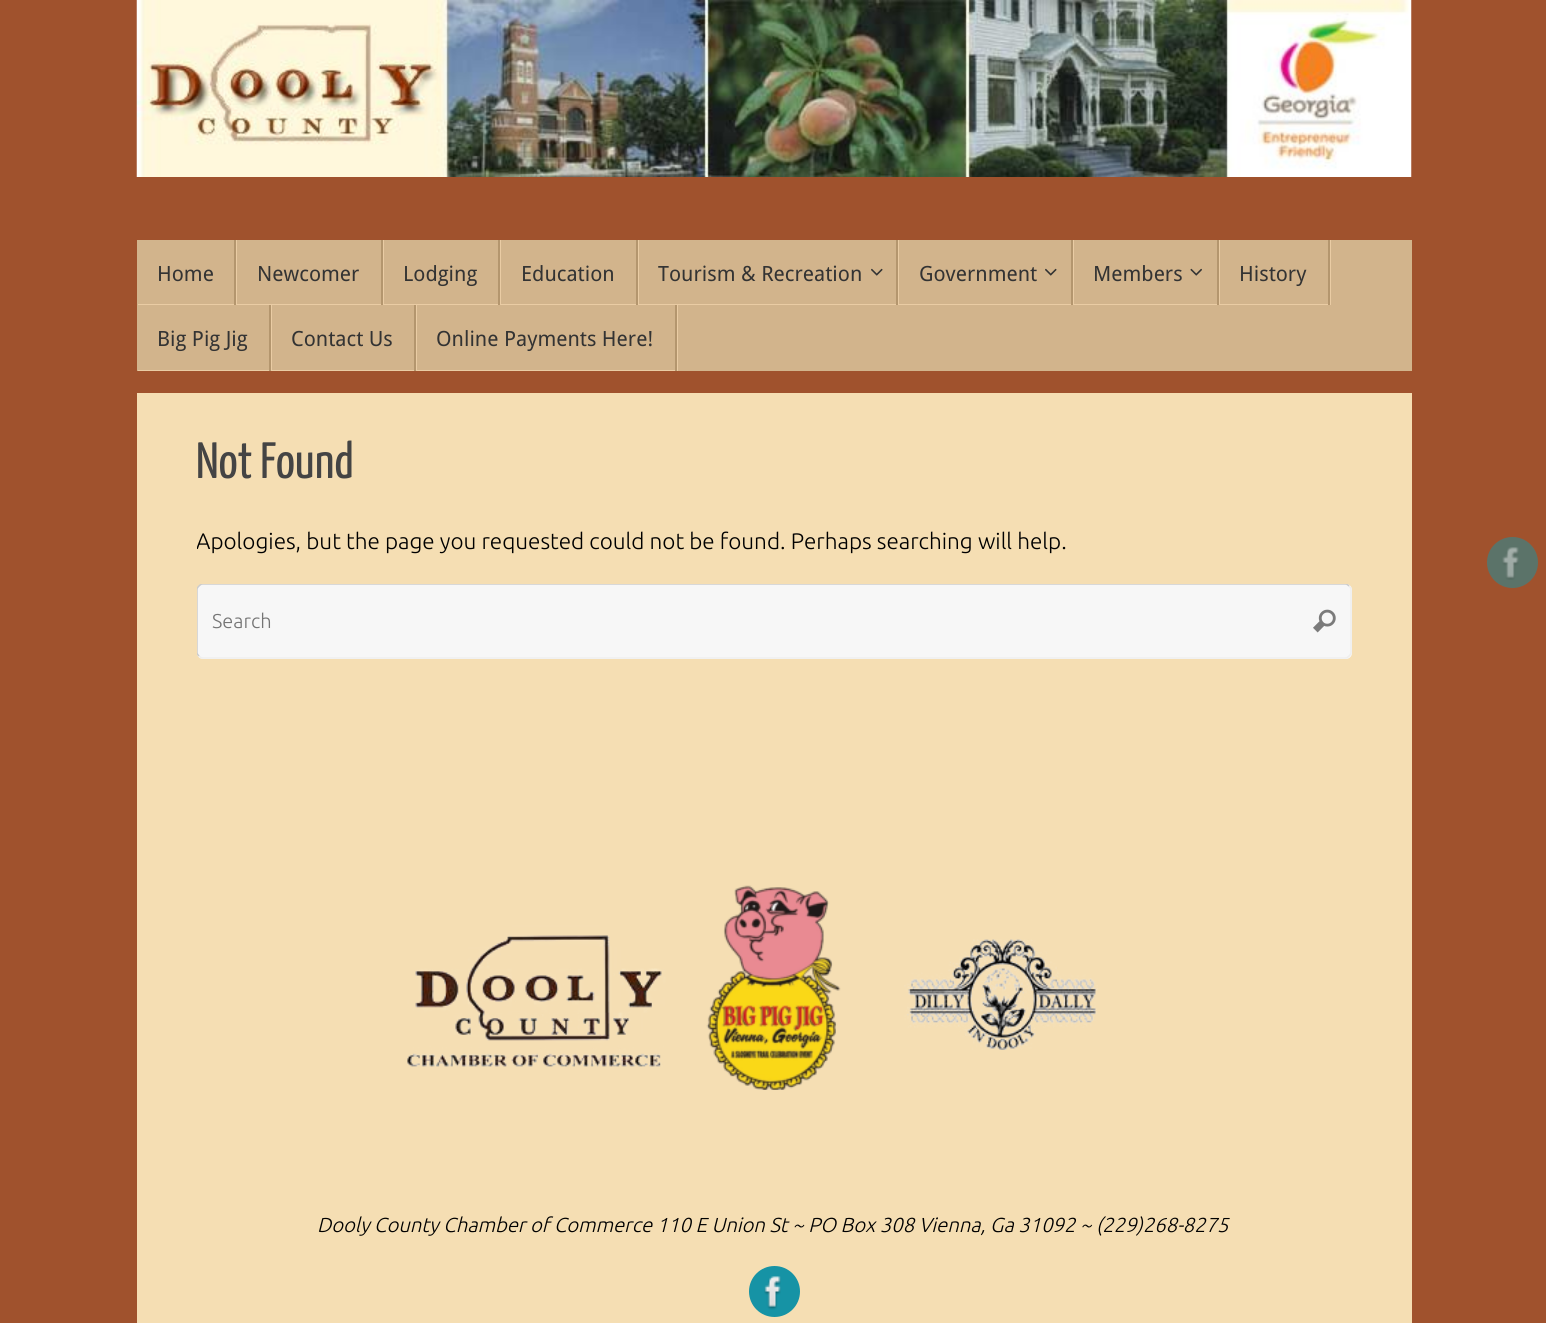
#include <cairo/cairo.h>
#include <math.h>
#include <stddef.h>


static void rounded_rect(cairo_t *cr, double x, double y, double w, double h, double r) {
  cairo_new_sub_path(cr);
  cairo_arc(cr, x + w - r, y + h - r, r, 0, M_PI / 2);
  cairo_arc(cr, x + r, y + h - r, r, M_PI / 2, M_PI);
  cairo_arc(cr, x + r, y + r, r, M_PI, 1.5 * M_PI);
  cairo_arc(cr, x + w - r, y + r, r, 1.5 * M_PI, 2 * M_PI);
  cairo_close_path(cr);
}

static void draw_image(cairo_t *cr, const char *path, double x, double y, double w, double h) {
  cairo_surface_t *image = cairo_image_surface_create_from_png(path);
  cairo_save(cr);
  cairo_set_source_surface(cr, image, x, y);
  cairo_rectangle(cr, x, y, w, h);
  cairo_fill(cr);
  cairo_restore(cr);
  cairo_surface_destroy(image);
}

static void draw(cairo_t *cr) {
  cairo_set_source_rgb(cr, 160 / 255.0, 82 / 255.0, 45 / 255.0);
  cairo_paint(cr);
  draw_image(cr, "images/1.png", 136, 0, 1276, 177);
  cairo_set_source_rgb(cr, 210 / 255.0, 180 / 255.0, 140 / 255.0);
  cairo_rectangle(cr, 137, 240, 1275, 131);
  cairo_fill(cr);
  cairo_set_source_rgb(cr, 234 / 255.0, 204 / 255.0, 164 / 255.0);
  cairo_new_path(cr);
  cairo_move_to(cr, 138, 304);
  cairo_line_to(cr, 138, 305);
  cairo_line_to(cr, 237, 305);
  cairo_line_to(cr, 237, 240);
  cairo_line_to(cr, 236, 240);
  cairo_line_to(cr, 236, 304);
  cairo_close_path(cr);
  cairo_fill(cr);
  cairo_set_source_rgb(cr, 180 / 255.0, 150 / 255.0, 110 / 255.0);
  cairo_rectangle(cr, 234, 240, 2, 65);
  cairo_fill(cr);
  cairo_set_source_rgb(cr, 234 / 255.0, 204 / 255.0, 164 / 255.0);
  cairo_new_path(cr);
  cairo_move_to(cr, 237, 304);
  cairo_line_to(cr, 237, 305);
  cairo_line_to(cr, 384, 305);
  cairo_line_to(cr, 384, 240);
  cairo_line_to(cr, 382, 240);
  cairo_line_to(cr, 382, 304);
  cairo_close_path(cr);
  cairo_fill(cr);
  cairo_set_source_rgb(cr, 180 / 255.0, 150 / 255.0, 110 / 255.0);
  cairo_rectangle(cr, 381, 240, 2, 65);
  cairo_fill(cr);
  cairo_set_source_rgb(cr, 234 / 255.0, 204 / 255.0, 164 / 255.0);
  cairo_new_path(cr);
  cairo_move_to(cr, 384, 304);
  cairo_line_to(cr, 384, 305);
  cairo_line_to(cr, 501, 305);
  cairo_line_to(cr, 501, 240);
  cairo_line_to(cr, 500, 240);
  cairo_line_to(cr, 500, 304);
  cairo_close_path(cr);
  cairo_fill(cr);
  cairo_set_source_rgb(cr, 180 / 255.0, 150 / 255.0, 110 / 255.0);
  cairo_rectangle(cr, 498, 240, 2, 65);
  cairo_fill(cr);
  cairo_set_source_rgb(cr, 234 / 255.0, 204 / 255.0, 164 / 255.0);
  cairo_new_path(cr);
  cairo_move_to(cr, 501, 304);
  cairo_line_to(cr, 501, 305);
  cairo_line_to(cr, 639, 305);
  cairo_line_to(cr, 639, 240);
  cairo_line_to(cr, 638, 240);
  cairo_line_to(cr, 638, 304);
  cairo_close_path(cr);
  cairo_fill(cr);
  cairo_set_source_rgb(cr, 180 / 255.0, 150 / 255.0, 110 / 255.0);
  cairo_rectangle(cr, 636, 240, 2, 65);
  cairo_fill(cr);
  cairo_set_source_rgb(cr, 234 / 255.0, 204 / 255.0, 164 / 255.0);
  cairo_new_path(cr);
  cairo_move_to(cr, 639, 304);
  cairo_line_to(cr, 639, 305);
  cairo_line_to(cr, 899, 305);
  cairo_line_to(cr, 899, 240);
  cairo_line_to(cr, 897, 240);
  cairo_line_to(cr, 897, 304);
  cairo_close_path(cr);
  cairo_fill(cr);
  cairo_set_source_rgb(cr, 180 / 255.0, 150 / 255.0, 110 / 255.0);
  cairo_rectangle(cr, 896, 240, 2, 65);
  cairo_fill(cr);
  draw_image(cr, "images/2.png", 871, 268, 12, 8);
  cairo_set_source_rgb(cr, 234 / 255.0, 204 / 255.0, 164 / 255.0);
  cairo_new_path(cr);
  cairo_move_to(cr, 899, 304);
  cairo_line_to(cr, 899, 305);
  cairo_line_to(cr, 1074, 305);
  cairo_line_to(cr, 1074, 240);
  cairo_line_to(cr, 1072, 240);
  cairo_line_to(cr, 1072, 304);
  cairo_close_path(cr);
  cairo_fill(cr);
  cairo_set_source_rgb(cr, 180 / 255.0, 150 / 255.0, 110 / 255.0);
  cairo_rectangle(cr, 1071, 240, 2, 65);
  cairo_fill(cr);
  draw_image(cr, "images/2.png", 1045, 268, 12, 8);
  cairo_set_source_rgb(cr, 234 / 255.0, 204 / 255.0, 164 / 255.0);
  cairo_new_path(cr);
  cairo_move_to(cr, 1074, 304);
  cairo_line_to(cr, 1074, 305);
  cairo_line_to(cr, 1220, 305);
  cairo_line_to(cr, 1220, 240);
  cairo_line_to(cr, 1218, 240);
  cairo_line_to(cr, 1218, 304);
  cairo_close_path(cr);
  cairo_fill(cr);
  cairo_set_source_rgb(cr, 180 / 255.0, 150 / 255.0, 110 / 255.0);
  cairo_rectangle(cr, 1217, 240, 2, 65);
  cairo_fill(cr);
  draw_image(cr, "images/3.png", 1190, 268, 12, 8);
  cairo_set_source_rgb(cr, 234 / 255.0, 204 / 255.0, 164 / 255.0);
  cairo_new_path(cr);
  cairo_move_to(cr, 1220, 304);
  cairo_line_to(cr, 1220, 305);
  cairo_line_to(cr, 1331, 305);
  cairo_line_to(cr, 1331, 240);
  cairo_line_to(cr, 1329, 240);
  cairo_line_to(cr, 1329, 304);
  cairo_close_path(cr);
  cairo_fill(cr);
  cairo_set_source_rgb(cr, 180 / 255.0, 150 / 255.0, 110 / 255.0);
  cairo_rectangle(cr, 1328, 240, 2, 65);
  cairo_fill(cr);
  cairo_set_source_rgb(cr, 234 / 255.0, 204 / 255.0, 164 / 255.0);
  cairo_new_path(cr);
  cairo_move_to(cr, 138, 370);
  cairo_line_to(cr, 138, 371);
  cairo_line_to(cr, 272, 371);
  cairo_line_to(cr, 272, 305);
  cairo_line_to(cr, 270, 305);
  cairo_line_to(cr, 270, 370);
  cairo_close_path(cr);
  cairo_fill(cr);
  cairo_set_source_rgb(cr, 180 / 255.0, 150 / 255.0, 110 / 255.0);
  cairo_rectangle(cr, 269, 305, 2, 66);
  cairo_fill(cr);
  cairo_set_source_rgb(cr, 234 / 255.0, 204 / 255.0, 164 / 255.0);
  cairo_new_path(cr);
  cairo_move_to(cr, 272, 370);
  cairo_line_to(cr, 272, 371);
  cairo_line_to(cr, 417, 371);
  cairo_line_to(cr, 417, 305);
  cairo_line_to(cr, 416, 305);
  cairo_line_to(cr, 416, 370);
  cairo_close_path(cr);
  cairo_fill(cr);
  cairo_set_source_rgb(cr, 180 / 255.0, 150 / 255.0, 110 / 255.0);
  cairo_rectangle(cr, 414, 305, 2, 66);
  cairo_fill(cr);
  cairo_set_source_rgb(cr, 234 / 255.0, 204 / 255.0, 164 / 255.0);
  cairo_new_path(cr);
  cairo_move_to(cr, 417, 370);
  cairo_line_to(cr, 417, 371);
  cairo_line_to(cr, 678, 371);
  cairo_line_to(cr, 678, 305);
  cairo_line_to(cr, 676, 305);
  cairo_line_to(cr, 676, 370);
  cairo_close_path(cr);
  cairo_fill(cr);
  cairo_set_source_rgb(cr, 180 / 255.0, 150 / 255.0, 110 / 255.0);
  cairo_rectangle(cr, 675, 305, 2, 66);
  cairo_fill(cr);
  cairo_set_source_rgb(cr, 245 / 255.0, 222 / 255.0, 179 / 255.0);
  cairo_rectangle(cr, 137, 393, 1275, 930);
  cairo_fill(cr);
  cairo_set_source_rgb(cr, 247 / 255.0, 247 / 255.0, 247 / 255.0);
  rounded_rect(cr, 197, 584, 1155, 75, 6);
  cairo_fill(cr);
  cairo_new_path(cr);
  cairo_move_to(cr, 1349, 586);
  cairo_curve_to(cr, 1350, 587, 1351, 588, 1351, 589.5);
  cairo_line_to(cr, 1351, 652.5);
  cairo_curve_to(cr, 1351, 654, 1350, 655, 1349, 656);
  cairo_curve_to(cr, 1348, 657, 1347, 658, 1345.5, 658);
  cairo_line_to(cr, 202.5, 658);
  cairo_curve_to(cr, 201, 658, 200, 657, 199, 656);
  cairo_set_source_rgb(cr, 238 / 255.0, 238 / 255.0, 238 / 255.0);
  cairo_set_line_width(cr, 1.5);
  cairo_stroke(cr);
  cairo_save(cr);
  cairo_rectangle(cr, 197, 584, 1155, 75);
  cairo_clip(cr);
  cairo_new_path(cr);
  cairo_move_to(cr, 199, 656);
  cairo_curve_to(cr, 198, 655, 197, 654, 197, 652.5);
  cairo_line_to(cr, 197, 589.5);
  cairo_curve_to(cr, 197, 588, 198, 587, 199, 586);
  cairo_curve_to(cr, 200, 585, 201, 584, 202.5, 584);
  cairo_line_to(cr, 1345.5, 584);
  cairo_curve_to(cr, 1347, 584, 1348, 585, 1349, 586);
  cairo_set_source_rgb(cr, 204 / 255.0, 204 / 255.0, 204 / 255.0);
  cairo_stroke(cr);
  cairo_restore(cr);
  draw_image(cr, "images/4.png", 1313, 609, 23, 24);
  draw_image(cr, "images/5.png", 407, 885, 691, 205);
  cairo_set_source_rgb(cr, 22 / 255.0, 147 / 255.0, 165 / 255.0);
  cairo_arc(cr, 774.5, 1291.5, 25.5, 0, 2 * M_PI);
  cairo_fill(cr);
  draw_image(cr, "images/6.png", 764, 1276, 17, 34);
  cairo_set_source_rgb(cr, 91 / 255.0, 115 / 255.0, 105 / 255.0);
  cairo_arc(cr, 1512.5, 562.5, 25.5, 0, 2 * M_PI);
  cairo_fill(cr);
  draw_image(cr, "images/7.png", 1502, 547, 17, 33);
  cairo_select_font_face(cr, "Droid Sans", CAIRO_FONT_SLANT_NORMAL, CAIRO_FONT_WEIGHT_NORMAL);
  cairo_set_font_size(cr, 21);
  cairo_set_source_rgb(cr, 51 / 255.0, 51 / 255.0, 51 / 255.0);
  cairo_move_to(cr, 157, 281);
  cairo_show_text(cr, "Home");
  cairo_move_to(cr, 257, 281);
  cairo_show_text(cr, "Newcomer");
  cairo_move_to(cr, 403, 281);
  cairo_show_text(cr, "Lodging");
  cairo_move_to(cr, 521, 281);
  cairo_show_text(cr, "Education");
  cairo_move_to(cr, 658, 281);
  cairo_show_text(cr, "Tourism & Recreation");
  cairo_move_to(cr, 919, 281);
  cairo_show_text(cr, "Government");
  cairo_move_to(cr, 1093, 281);
  cairo_show_text(cr, "Members");
  cairo_move_to(cr, 1239, 281);
  cairo_show_text(cr, "History");
  cairo_move_to(cr, 157, 346);
  cairo_show_text(cr, "Big Pig Jig");
  cairo_move_to(cr, 291, 346);
  cairo_show_text(cr, "Contact Us");
  cairo_move_to(cr, 436, 346);
  cairo_show_text(cr, "Online Payments Here!");
  cairo_select_font_face(cr, "Yanone Kaffeesatz", CAIRO_FONT_SLANT_NORMAL, CAIRO_FONT_WEIGHT_NORMAL);
  cairo_set_font_size(cr, 51);
  cairo_set_source_rgb(cr, 68 / 255.0, 68 / 255.0, 68 / 255.0);
  cairo_move_to(cr, 196, 478);
  cairo_show_text(cr, "Not Found");
  cairo_save(cr);
  cairo_rectangle(cr, 197, 509, 1155, 165);
  cairo_clip(cr);
  cairo_select_font_face(cr, "Ubuntu Light", CAIRO_FONT_SLANT_NORMAL, CAIRO_FONT_WEIGHT_NORMAL);
  cairo_set_font_size(cr, 22.5);
  cairo_set_source_rgb(cr, 0, 0, 0);
  cairo_move_to(cr, 196, 549);
  cairo_show_text(cr, "Apologies, but the page you requested could not be found. Perhaps searching will help.");
  cairo_restore(cr);
  cairo_select_font_face(cr, "Ubuntu Light", CAIRO_FONT_SLANT_NORMAL, CAIRO_FONT_WEIGHT_NORMAL);
  cairo_set_font_size(cr, 20);
  cairo_set_source_rgb(cr, 117 / 255.0, 117 / 255.0, 117 / 255.0);
  cairo_move_to(cr, 212, 628);
  cairo_show_text(cr, "Search");
  cairo_select_font_face(cr, "Ubuntu Light", CAIRO_FONT_SLANT_ITALIC, CAIRO_FONT_WEIGHT_NORMAL);
  cairo_set_font_size(cr, 20.25);
  cairo_set_source_rgb(cr, 0, 0, 0);
  cairo_move_to(cr, 317, 1232);
  cairo_show_text(cr, "Dooly County Chamber of Commerce 110 E Union St ~ PO Box 308 Vienna, Ga 31092 ~ (229)268-8275");
}

int main(void) {
  cairo_surface_t *surface = cairo_image_surface_create(CAIRO_FORMAT_RGB24, 1546, 1323);
  cairo_t *cr = cairo_create(surface);
  cairo_font_options_t *options = cairo_font_options_create();
  cairo_font_options_set_hint_metrics(options, CAIRO_HINT_METRICS_OFF);
  cairo_font_options_set_hint_style(options, CAIRO_HINT_STYLE_NONE);
  cairo_set_font_options(cr, options);
  cairo_set_miter_limit(cr, 4);
  draw(cr);
  cairo_surface_write_to_png(surface, "out.png");
  cairo_font_options_destroy(options);
  cairo_destroy(cr);
  cairo_surface_destroy(surface);
  return 0;
}
